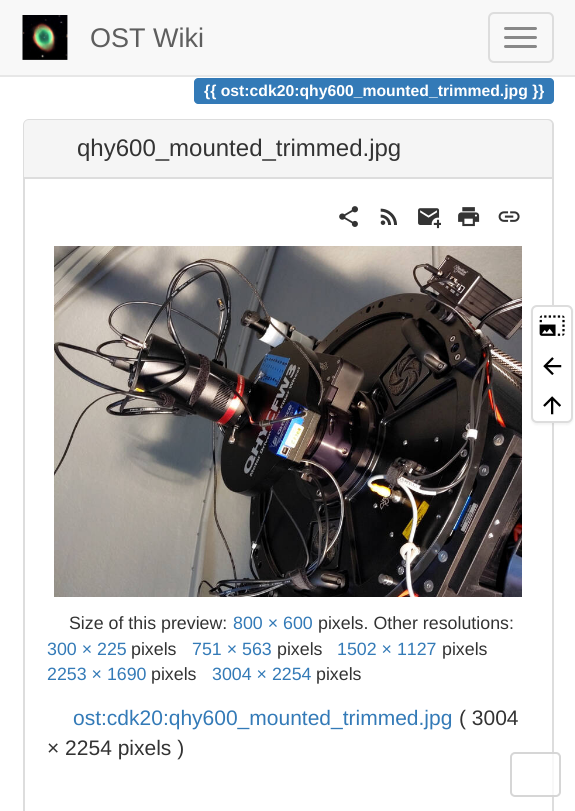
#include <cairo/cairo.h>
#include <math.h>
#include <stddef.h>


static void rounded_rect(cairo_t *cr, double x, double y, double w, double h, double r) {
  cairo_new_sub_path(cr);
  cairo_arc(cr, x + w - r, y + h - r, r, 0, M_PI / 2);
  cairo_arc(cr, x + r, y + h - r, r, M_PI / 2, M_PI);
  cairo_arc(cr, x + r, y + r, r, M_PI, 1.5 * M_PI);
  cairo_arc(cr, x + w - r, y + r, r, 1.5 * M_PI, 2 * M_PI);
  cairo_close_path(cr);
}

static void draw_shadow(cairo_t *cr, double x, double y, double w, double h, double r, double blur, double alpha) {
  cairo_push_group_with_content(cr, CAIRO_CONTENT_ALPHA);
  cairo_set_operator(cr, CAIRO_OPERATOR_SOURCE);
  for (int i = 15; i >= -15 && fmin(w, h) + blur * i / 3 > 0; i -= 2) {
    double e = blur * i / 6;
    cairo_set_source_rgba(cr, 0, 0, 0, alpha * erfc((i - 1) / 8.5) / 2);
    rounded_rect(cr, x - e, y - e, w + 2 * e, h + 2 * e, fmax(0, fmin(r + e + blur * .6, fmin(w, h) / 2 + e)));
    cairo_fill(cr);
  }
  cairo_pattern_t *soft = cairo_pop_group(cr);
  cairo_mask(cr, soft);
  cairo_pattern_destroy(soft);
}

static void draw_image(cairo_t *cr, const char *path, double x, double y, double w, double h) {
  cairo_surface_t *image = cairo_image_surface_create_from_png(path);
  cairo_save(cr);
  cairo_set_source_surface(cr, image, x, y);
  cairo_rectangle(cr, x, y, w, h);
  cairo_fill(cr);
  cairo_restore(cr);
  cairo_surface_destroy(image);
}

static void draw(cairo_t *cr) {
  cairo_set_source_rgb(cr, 1, 1, 1);
  cairo_paint(cr);
  cairo_set_source_rgb(cr, 248 / 255.0, 248 / 255.0, 248 / 255.0);
  cairo_rectangle(cr, 0, 0, 575, 75);
  cairo_fill(cr);
  cairo_set_source_rgb(cr, 231 / 255.0, 231 / 255.0, 231 / 255.0);
  cairo_rectangle(cr, 0, 75, 575, 2);
  cairo_fill(cr);
  draw_image(cr, "images/1.png", 22, 15, 46, 45);
  rounded_rect(cr, 489, 13, 64, 49, 5);
  cairo_set_source_rgb(cr, 221 / 255.0, 221 / 255.0, 221 / 255.0);
  cairo_stroke(cr);
  cairo_set_source_rgb(cr, 136 / 255.0, 136 / 255.0, 136 / 255.0);
  rounded_rect(cr, 504, 27, 33, 3, 1.5);
  cairo_fill(cr);
  rounded_rect(cr, 504, 36, 33, 3, 1.5);
  cairo_fill(cr);
  rounded_rect(cr, 504, 45, 33, 3, 1.5);
  cairo_fill(cr);
  cairo_set_source_rgb(cr, 51 / 255.0, 122 / 255.0, 183 / 255.0);
  cairo_new_path(cr);
  cairo_move_to(cr, 198, 78);
  cairo_line_to(cr, 221, 78);
  cairo_line_to(cr, 221, 104);
  cairo_line_to(cr, 198, 104);
  cairo_curve_to(cr, 196, 104, 194, 102, 194, 100);
  cairo_line_to(cr, 194, 82);
  cairo_curve_to(cr, 194, 80, 196, 78, 198, 78);
  cairo_close_path(cr);
  cairo_fill(cr);
  cairo_rectangle(cr, 221, 78, 307, 26);
  cairo_fill(cr);
  cairo_new_path(cr);
  cairo_move_to(cr, 528, 78);
  cairo_line_to(cr, 550, 78);
  cairo_curve_to(cr, 552, 78, 554, 80, 554, 82);
  cairo_line_to(cr, 554, 100);
  cairo_curve_to(cr, 554, 102, 552, 104, 550, 104);
  cairo_line_to(cr, 528, 104);
  cairo_close_path(cr);
  cairo_fill(cr);
  rounded_rect(cr, 24, 120, 529, 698, 5);
  cairo_set_source_rgb(cr, 221 / 255.0, 221 / 255.0, 221 / 255.0);
  cairo_stroke(cr);
  cairo_set_source_rgb(cr, 245 / 255.0, 245 / 255.0, 245 / 255.0);
  cairo_new_path(cr);
  cairo_move_to(cr, 29, 120);
  cairo_line_to(cr, 547, 120);
  cairo_curve_to(cr, 550, 120, 552, 122, 552, 125);
  cairo_line_to(cr, 552, 179);
  cairo_line_to(cr, 24, 179);
  cairo_line_to(cr, 24, 125);
  cairo_curve_to(cr, 24, 122, 26, 120, 29, 120);
  cairo_close_path(cr);
  cairo_fill(cr);
  cairo_set_source_rgb(cr, 221 / 255.0, 221 / 255.0, 221 / 255.0);
  cairo_rectangle(cr, 24, 177, 528, 2);
  cairo_fill(cr);
  draw_image(cr, "images/2.png", 339, 206, 19, 21);
  draw_image(cr, "images/3.png", 380, 208, 17, 17);
  draw_image(cr, "images/4.png", 418, 208, 23, 21);
  draw_image(cr, "images/5.png", 458, 207, 22, 20);
  draw_image(cr, "images/6.png", 498, 211, 22, 11);
  draw_image(cr, "images/7.png", 54, 246, 468, 351);
  cairo_set_source_rgb(cr, 0, 0, 0);
  draw_shadow(cr, 531, 306, 42, 119, 6, 1, 0.05);
  cairo_set_source_rgb(cr, 1, 1, 1);
  rounded_rect(cr, 532, 306, 40, 116, 5);
  cairo_fill_preserve(cr);
  cairo_set_source_rgb(cr, 221 / 255.0, 221 / 255.0, 221 / 255.0);
  cairo_stroke(cr);
  draw_image(cr, "images/8.png", 539, 315, 26, 21);
  draw_image(cr, "images/9.png", 543, 357, 19, 18);
  draw_image(cr, "images/10.png", 543, 396, 18, 19);
  cairo_set_source_rgba(cr, 1, 1, 1, 0.8);
  rounded_rect(cr, 510, 752, 51, 45, 5);
  cairo_fill(cr);
  rounded_rect(cr, 511, 753, 49, 43, 4);
  cairo_set_source_rgba(cr, 204 / 255.0, 204 / 255.0, 204 / 255.0, 0.8);
  cairo_stroke(cr);
  cairo_select_font_face(cr, "Liberation Sans", CAIRO_FONT_SLANT_NORMAL, CAIRO_FONT_WEIGHT_NORMAL);
  cairo_set_font_size(cr, 27);
  cairo_set_source_rgb(cr, 94 / 255.0, 94 / 255.0, 94 / 255.0);
  cairo_move_to(cr, 90, 47);
  cairo_show_text(cr, "OST Wiki");
  cairo_select_font_face(cr, "Liberation Sans", CAIRO_FONT_SLANT_NORMAL, CAIRO_FONT_WEIGHT_BOLD);
  cairo_set_font_size(cr, 15.75);
  cairo_set_source_rgb(cr, 1, 1, 1);
  cairo_move_to(cr, 204, 96);
  cairo_show_text(cr, "{{ ost:cdk20:qhy600_mounted_trimmed.jpg }}");
  cairo_select_font_face(cr, "Liberation Sans", CAIRO_FONT_SLANT_NORMAL, CAIRO_FONT_WEIGHT_NORMAL);
  cairo_set_font_size(cr, 24);
  cairo_set_source_rgb(cr, 51 / 255.0, 51 / 255.0, 51 / 255.0);
  cairo_move_to(cr, 77, 156);
  cairo_show_text(cr, "qhy600_mounted_trimmed.jpg");
  cairo_set_font_size(cr, 17.8);
  cairo_move_to(cr, 69, 629);
  cairo_show_text(cr, "Size of this preview:");
  cairo_set_source_rgb(cr, 51 / 255.0, 122 / 255.0, 183 / 255.0);
  cairo_move_to(cr, 233, 629);
  cairo_show_text(cr, "800 × 600");
  cairo_set_source_rgb(cr, 51 / 255.0, 51 / 255.0, 51 / 255.0);
  cairo_move_to(cr, 318, 629);
  cairo_show_text(cr, "pixels. Other resolutions:");
  cairo_set_source_rgb(cr, 51 / 255.0, 122 / 255.0, 183 / 255.0);
  cairo_move_to(cr, 47, 655);
  cairo_show_text(cr, "300 × 225");
  cairo_set_source_rgb(cr, 51 / 255.0, 51 / 255.0, 51 / 255.0);
  cairo_move_to(cr, 131, 655);
  cairo_show_text(cr, "pixels");
  cairo_set_source_rgb(cr, 51 / 255.0, 122 / 255.0, 183 / 255.0);
  cairo_move_to(cr, 192, 655);
  cairo_show_text(cr, "751 × 563");
  cairo_set_source_rgb(cr, 51 / 255.0, 51 / 255.0, 51 / 255.0);
  cairo_move_to(cr, 277, 655);
  cairo_show_text(cr, "pixels");
  cairo_set_source_rgb(cr, 51 / 255.0, 122 / 255.0, 183 / 255.0);
  cairo_move_to(cr, 337, 655);
  cairo_show_text(cr, "1502 × 1127");
  cairo_set_source_rgb(cr, 51 / 255.0, 51 / 255.0, 51 / 255.0);
  cairo_move_to(cr, 442, 655);
  cairo_show_text(cr, "pixels");
  cairo_set_source_rgb(cr, 51 / 255.0, 122 / 255.0, 183 / 255.0);
  cairo_move_to(cr, 47, 680);
  cairo_show_text(cr, "2253 × 1690");
  cairo_set_source_rgb(cr, 51 / 255.0, 51 / 255.0, 51 / 255.0);
  cairo_move_to(cr, 151, 680);
  cairo_show_text(cr, "pixels");
  cairo_set_source_rgb(cr, 51 / 255.0, 122 / 255.0, 183 / 255.0);
  cairo_move_to(cr, 212, 680);
  cairo_show_text(cr, "3004 × 2254");
  cairo_set_source_rgb(cr, 51 / 255.0, 51 / 255.0, 51 / 255.0);
  cairo_move_to(cr, 316, 680);
  cairo_show_text(cr, "pixels");
  cairo_set_font_size(cr, 21);
  cairo_set_source_rgb(cr, 51 / 255.0, 122 / 255.0, 183 / 255.0);
  cairo_move_to(cr, 73, 725);
  cairo_show_text(cr, "ost:cdk20:qhy600_mounted_trimmed.jpg");
  cairo_set_source_rgb(cr, 51 / 255.0, 51 / 255.0, 51 / 255.0);
  cairo_move_to(cr, 459, 725);
  cairo_show_text(cr, "( 3004");
  cairo_move_to(cr, 47, 755);
  cairo_show_text(cr, "× 2254 pixels )");
}

int main(void) {
  cairo_surface_t *surface = cairo_image_surface_create(CAIRO_FORMAT_RGB24, 575, 811);
  cairo_t *cr = cairo_create(surface);
  cairo_font_options_t *options = cairo_font_options_create();
  cairo_font_options_set_hint_metrics(options, CAIRO_HINT_METRICS_OFF);
  cairo_font_options_set_hint_style(options, CAIRO_HINT_STYLE_NONE);
  cairo_set_font_options(cr, options);
  cairo_set_miter_limit(cr, 4);
  draw(cr);
  cairo_surface_write_to_png(surface, "out.png");
  cairo_font_options_destroy(options);
  cairo_destroy(cr);
  cairo_surface_destroy(surface);
  return 0;
}
